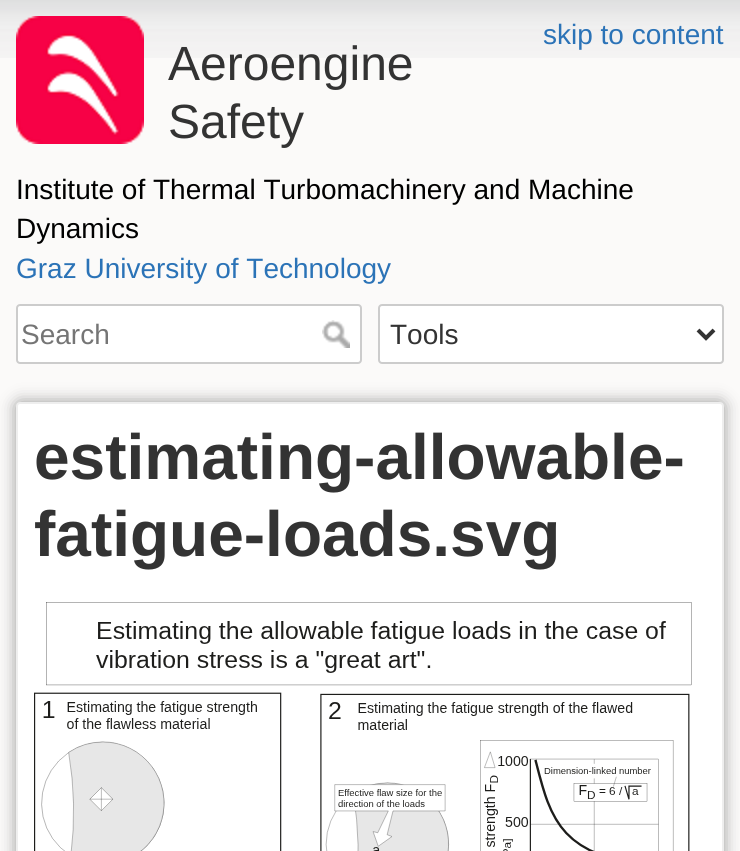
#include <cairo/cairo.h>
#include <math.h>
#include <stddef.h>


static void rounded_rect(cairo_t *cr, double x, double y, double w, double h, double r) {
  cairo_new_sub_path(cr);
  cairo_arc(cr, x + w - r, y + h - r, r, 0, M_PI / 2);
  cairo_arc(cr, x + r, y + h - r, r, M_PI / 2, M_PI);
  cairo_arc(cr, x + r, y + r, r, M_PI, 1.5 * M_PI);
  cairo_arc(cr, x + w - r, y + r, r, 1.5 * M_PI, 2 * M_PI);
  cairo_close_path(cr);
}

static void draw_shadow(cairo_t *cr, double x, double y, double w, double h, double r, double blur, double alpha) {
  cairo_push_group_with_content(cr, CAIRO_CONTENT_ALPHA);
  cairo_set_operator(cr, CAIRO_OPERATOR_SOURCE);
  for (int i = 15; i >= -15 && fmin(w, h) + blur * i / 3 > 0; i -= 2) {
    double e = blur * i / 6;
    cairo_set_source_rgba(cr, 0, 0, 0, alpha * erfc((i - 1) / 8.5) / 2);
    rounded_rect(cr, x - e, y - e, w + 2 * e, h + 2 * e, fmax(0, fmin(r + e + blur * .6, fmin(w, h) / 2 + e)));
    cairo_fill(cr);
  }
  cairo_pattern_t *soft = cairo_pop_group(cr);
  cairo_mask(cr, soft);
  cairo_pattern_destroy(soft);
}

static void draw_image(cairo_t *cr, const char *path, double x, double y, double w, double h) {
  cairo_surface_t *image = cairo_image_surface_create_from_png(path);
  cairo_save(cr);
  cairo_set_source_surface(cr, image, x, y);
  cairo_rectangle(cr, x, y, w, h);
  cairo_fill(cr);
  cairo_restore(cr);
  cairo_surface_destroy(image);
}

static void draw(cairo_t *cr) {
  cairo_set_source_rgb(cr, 251 / 255.0, 250 / 255.0, 249 / 255.0);
  cairo_paint(cr);
  draw_image(cr, "images/1.png", 0, 0, 740, 58);
  draw_image(cr, "images/2.png", 16, 16, 128, 128);
  cairo_set_source_rgb(cr, 1, 1, 1);
  rounded_rect(cr, 17, 305, 344, 58, 3);
  cairo_fill_preserve(cr);
  cairo_set_source_rgb(cr, 204 / 255.0, 204 / 255.0, 204 / 255.0);
  cairo_stroke(cr);
  draw_image(cr, "images/3.png", 322, 320, 28, 28);
  cairo_set_source_rgb(cr, 1, 1, 1);
  rounded_rect(cr, 379, 305, 344, 58, 3);
  cairo_fill_preserve(cr);
  cairo_set_source_rgb(cr, 204 / 255.0, 204 / 255.0, 204 / 255.0);
  cairo_stroke(cr);
  cairo_new_path(cr);
  cairo_move_to(cr, 698, 330);
  cairo_line_to(cr, 706, 338);
  cairo_line_to(cr, 714, 330);
  cairo_set_source_rgb(cr, 51 / 255.0, 51 / 255.0, 51 / 255.0);
  cairo_set_line_width(cr, 4);
  cairo_stroke(cr);
  cairo_set_source_rgb(cr, 153 / 255.0, 153 / 255.0, 153 / 255.0);
  draw_shadow(cr, 16, 402, 708, 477, 4, 8, 1);
  cairo_set_source_rgb(cr, 1, 1, 1);
  rounded_rect(cr, 17, 403, 706, 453, 3);
  cairo_fill_preserve(cr);
  cairo_set_source_rgb(cr, 238 / 255.0, 238 / 255.0, 238 / 255.0);
  cairo_set_line_width(cr, 2);
  cairo_stroke(cr);
  draw_image(cr, "images/4.png", 34, 602, 658, 249);
  cairo_select_font_face(cr, "Liberation Sans", CAIRO_FONT_SLANT_NORMAL, CAIRO_FONT_WEIGHT_NORMAL);
  cairo_set_font_size(cr, 28);
  cairo_set_source_rgb(cr, 43 / 255.0, 115 / 255.0, 183 / 255.0);
  cairo_move_to(cr, 543, 44);
  cairo_show_text(cr, "skip to content");
  cairo_set_font_size(cr, 48);
  cairo_set_source_rgb(cr, 51 / 255.0, 51 / 255.0, 51 / 255.0);
  cairo_move_to(cr, 168, 80);
  cairo_show_text(cr, "Aeroengine");
  cairo_move_to(cr, 168, 138);
  cairo_show_text(cr, "Safety");
  cairo_set_font_size(cr, 28);
  cairo_set_source_rgb(cr, 0, 0, 0);
  cairo_move_to(cr, 16, 199);
  cairo_show_text(cr, "Institute of Thermal Turbomachinery and Machine");
  cairo_move_to(cr, 16, 238);
  cairo_show_text(cr, "Dynamics");
  cairo_set_source_rgb(cr, 43 / 255.0, 115 / 255.0, 183 / 255.0);
  cairo_move_to(cr, 16, 278);
  cairo_show_text(cr, "Graz University of Technology");
  cairo_set_source_rgb(cr, 117 / 255.0, 117 / 255.0, 117 / 255.0);
  cairo_move_to(cr, 21, 344);
  cairo_show_text(cr, "Search");
  cairo_set_source_rgb(cr, 51 / 255.0, 51 / 255.0, 51 / 255.0);
  cairo_move_to(cr, 390, 344);
  cairo_show_text(cr, "Tools");
  cairo_select_font_face(cr, "Liberation Sans", CAIRO_FONT_SLANT_NORMAL, CAIRO_FONT_WEIGHT_BOLD);
  cairo_set_font_size(cr, 64);
  cairo_move_to(cr, 34, 479);
  cairo_show_text(cr, "estimating-allowable-");
  cairo_move_to(cr, 34, 556);
  cairo_show_text(cr, "fatigue-loads.svg");
}

int main(void) {
  cairo_surface_t *surface = cairo_image_surface_create(CAIRO_FORMAT_RGB24, 740, 851);
  cairo_t *cr = cairo_create(surface);
  cairo_font_options_t *options = cairo_font_options_create();
  cairo_font_options_set_hint_metrics(options, CAIRO_HINT_METRICS_OFF);
  cairo_font_options_set_hint_style(options, CAIRO_HINT_STYLE_NONE);
  cairo_set_font_options(cr, options);
  cairo_set_miter_limit(cr, 4);
  draw(cr);
  cairo_surface_write_to_png(surface, "out.png");
  cairo_font_options_destroy(options);
  cairo_destroy(cr);
  cairo_surface_destroy(surface);
  return 0;
}
